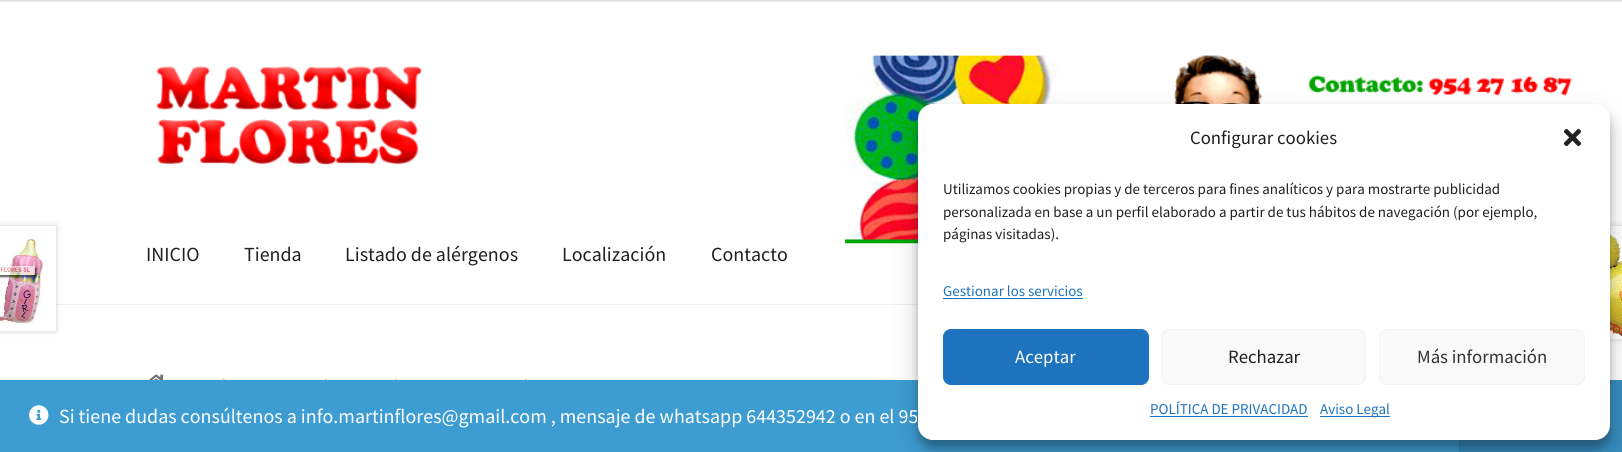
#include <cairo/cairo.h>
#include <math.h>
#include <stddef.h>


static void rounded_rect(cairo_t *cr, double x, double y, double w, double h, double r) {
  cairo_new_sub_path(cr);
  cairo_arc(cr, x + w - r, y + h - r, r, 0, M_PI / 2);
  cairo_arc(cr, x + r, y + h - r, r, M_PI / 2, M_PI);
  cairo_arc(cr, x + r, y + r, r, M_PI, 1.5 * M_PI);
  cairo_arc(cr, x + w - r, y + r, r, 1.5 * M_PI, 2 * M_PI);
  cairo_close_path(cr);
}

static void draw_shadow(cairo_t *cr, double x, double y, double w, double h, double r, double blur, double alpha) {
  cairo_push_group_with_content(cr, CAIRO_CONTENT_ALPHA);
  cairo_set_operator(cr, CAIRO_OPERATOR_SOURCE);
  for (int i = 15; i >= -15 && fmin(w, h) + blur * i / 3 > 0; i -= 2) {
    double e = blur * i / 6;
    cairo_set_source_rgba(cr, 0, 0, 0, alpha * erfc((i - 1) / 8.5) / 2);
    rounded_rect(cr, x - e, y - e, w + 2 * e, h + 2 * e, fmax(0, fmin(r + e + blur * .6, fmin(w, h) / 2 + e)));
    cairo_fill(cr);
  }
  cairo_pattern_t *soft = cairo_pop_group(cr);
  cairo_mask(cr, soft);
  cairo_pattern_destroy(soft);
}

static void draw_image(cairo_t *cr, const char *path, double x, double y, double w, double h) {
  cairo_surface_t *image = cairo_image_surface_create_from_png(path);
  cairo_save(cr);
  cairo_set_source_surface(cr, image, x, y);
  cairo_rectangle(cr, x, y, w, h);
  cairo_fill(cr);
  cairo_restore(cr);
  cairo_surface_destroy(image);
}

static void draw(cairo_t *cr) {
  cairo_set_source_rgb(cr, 1, 1, 1);
  cairo_paint(cr);
  cairo_set_source_rgb(cr, 0, 0, 0);
  draw_shadow(cr, 0, -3, 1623, 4, 0, 1, 0.2);
  cairo_set_source_rgb(cr, 240 / 255.0, 240 / 255.0, 240 / 255.0);
  cairo_rectangle(cr, 56, 304, 862, 1);
  cairo_fill(cr);
  cairo_set_source_rgb(cr, 0, 0, 0);
  draw_shadow(cr, -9, 226, 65, 105, 0, 3, 0.2);
  cairo_set_source_rgb(cr, 1, 1, 1);
  cairo_rectangle(cr, 0, 226, 56, 105);
  cairo_fill(cr);
  draw_image(cr, "images/1.png", 0, 235, 46, 89);
  draw_image(cr, "images/3.png", 844, 55, 742, 189);
  cairo_set_source_rgb(cr, 0, 0, 0);
  draw_shadow(cr, 1566, 226, 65, 113, 0, 3, 0.2);
  cairo_set_source_rgb(cr, 1, 1, 1);
  cairo_rectangle(cr, 1610, 226, 12, 113);
  cairo_fill(cr);
  draw_image(cr, "images/2.png", 1610, 227, 12, 109);
  draw_image(cr, "images/4.png", 156, 66, 267, 99);
  draw_image(cr, "images/5.png", 149, 374, 15, 6);
  draw_image(cr, "images/6.png", 222, 378, 4, 2);
  draw_image(cr, "images/7.png", 324, 378, 4, 2);
  draw_image(cr, "images/7.png", 394, 378, 4, 2);
  draw_image(cr, "images/7.png", 524, 378, 4, 2);
  cairo_set_source_rgb(cr, 61 / 255.0, 156 / 255.0, 210 / 255.0);
  cairo_rectangle(cr, 0, 380, 1459, 72);
  cairo_fill(cr);
  cairo_set_source_rgb(cr, 55 / 255.0, 140 / 255.0, 189 / 255.0);
  cairo_rectangle(cr, 1459, 380, 163, 72);
  cairo_fill(cr);
  cairo_set_source_rgb(cr, 0, 0, 0);
  draw_shadow(cr, 918, 111, 692, 337, 15, 4, 0.23);
  draw_shadow(cr, 918, 116, 692, 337, 15, 12.5, 0.19);
  cairo_set_source_rgb(cr, 1, 1, 1);
  rounded_rect(cr, 918, 104, 692, 336, 15);
  cairo_fill(cr);
  draw_image(cr, "images/8.png", 1563, 128, 19, 19);
  cairo_set_source_rgb(cr, 30 / 255.0, 115 / 255.0, 190 / 255.0);
  cairo_rectangle(cr, 943, 298, 140, 1);
  cairo_fill(cr);
  rounded_rect(cr, 943.5, 329.5, 205, 55, 7.5);
  cairo_fill_preserve(cr);
  cairo_set_line_width(cr, 1);
  cairo_stroke(cr);
  cairo_set_source_rgb(cr, 249 / 255.0, 249 / 255.0, 249 / 255.0);
  rounded_rect(cr, 1161.5, 329.5, 204, 55, 7.5);
  cairo_fill_preserve(cr);
  cairo_set_source_rgb(cr, 242 / 255.0, 242 / 255.0, 242 / 255.0);
  cairo_stroke(cr);
  cairo_set_source_rgb(cr, 249 / 255.0, 249 / 255.0, 249 / 255.0);
  rounded_rect(cr, 1379.5, 329.5, 205, 55, 7.5);
  cairo_fill_preserve(cr);
  cairo_set_source_rgb(cr, 242 / 255.0, 242 / 255.0, 242 / 255.0);
  cairo_stroke(cr);
  cairo_set_source_rgb(cr, 30 / 255.0, 115 / 255.0, 190 / 255.0);
  cairo_rectangle(cr, 1150, 416, 158, 1);
  cairo_fill(cr);
  cairo_rectangle(cr, 1320, 416, 70, 1);
  cairo_fill(cr);
  draw_image(cr, "images/9.png", 29, 405, 20, 20);
  cairo_select_font_face(cr, "Source Sans Pro", CAIRO_FONT_SLANT_NORMAL, CAIRO_FONT_WEIGHT_NORMAL);
  cairo_set_font_size(cr, 20);
  cairo_set_source_rgb(cr, 30 / 255.0, 33 / 255.0, 29 / 255.0);
  cairo_move_to(cr, 146, 261);
  cairo_show_text(cr, "INICIO");
  cairo_move_to(cr, 244, 261);
  cairo_show_text(cr, "Tienda");
  cairo_move_to(cr, 345, 261);
  cairo_show_text(cr, "Listado de alérgenos");
  cairo_move_to(cr, 562, 261);
  cairo_show_text(cr, "Localización");
  cairo_move_to(cr, 711, 261);
  cairo_show_text(cr, "Contacto");
  cairo_set_font_size(cr, 18.75);
  cairo_move_to(cr, 1190, 144);
  cairo_show_text(cr, "Configurar cookies");
  cairo_set_font_size(cr, 15);
  cairo_move_to(cr, 943, 194);
  cairo_show_text(cr, "Utilizamos cookies propias y de terceros para fines analíticos y para mostrarte publicidad");
  cairo_move_to(cr, 943, 217);
  cairo_show_text(cr, "personalizada en base a un perfil elaborado a partir de tus hábitos de navegación (por ejemplo,");
  cairo_move_to(cr, 943, 239);
  cairo_show_text(cr, "páginas visitadas).");
  cairo_set_source_rgb(cr, 30 / 255.0, 115 / 255.0, 190 / 255.0);
  cairo_move_to(cr, 943, 296);
  cairo_show_text(cr, "Gestionar los servicios");
  cairo_set_font_size(cr, 18.75);
  cairo_set_source_rgb(cr, 1, 1, 1);
  cairo_move_to(cr, 1015, 363);
  cairo_show_text(cr, "Aceptar");
  cairo_set_source_rgb(cr, 30 / 255.0, 33 / 255.0, 29 / 255.0);
  cairo_move_to(cr, 1228, 363);
  cairo_show_text(cr, "Rechazar");
  cairo_set_source_rgb(cr, 51 / 255.0, 51 / 255.0, 51 / 255.0);
  cairo_move_to(cr, 1417, 363);
  cairo_show_text(cr, "Más información");
  cairo_set_font_size(cr, 15);
  cairo_set_source_rgb(cr, 30 / 255.0, 115 / 255.0, 190 / 255.0);
  cairo_move_to(cr, 1150, 414);
  cairo_show_text(cr, "POLÍTICA DE PRIVACIDAD");
  cairo_move_to(cr, 1320, 414);
  cairo_show_text(cr, "Aviso Legal");
  cairo_set_font_size(cr, 20);
  cairo_set_source_rgb(cr, 1, 1, 1);
  cairo_move_to(cr, 59, 423);
  cairo_show_text(cr, "Si tiene dudas consúltenos a info.martinflores@gmail.com , mensaje de whatsapp 644352942 o en el 95");
}

int main(void) {
  cairo_surface_t *surface = cairo_image_surface_create(CAIRO_FORMAT_RGB24, 1622, 452);
  cairo_t *cr = cairo_create(surface);
  cairo_font_options_t *options = cairo_font_options_create();
  cairo_font_options_set_hint_metrics(options, CAIRO_HINT_METRICS_OFF);
  cairo_font_options_set_hint_style(options, CAIRO_HINT_STYLE_NONE);
  cairo_set_font_options(cr, options);
  cairo_set_miter_limit(cr, 4);
  draw(cr);
  cairo_surface_write_to_png(surface, "out.png");
  cairo_font_options_destroy(options);
  cairo_destroy(cr);
  cairo_surface_destroy(surface);
  return 0;
}
